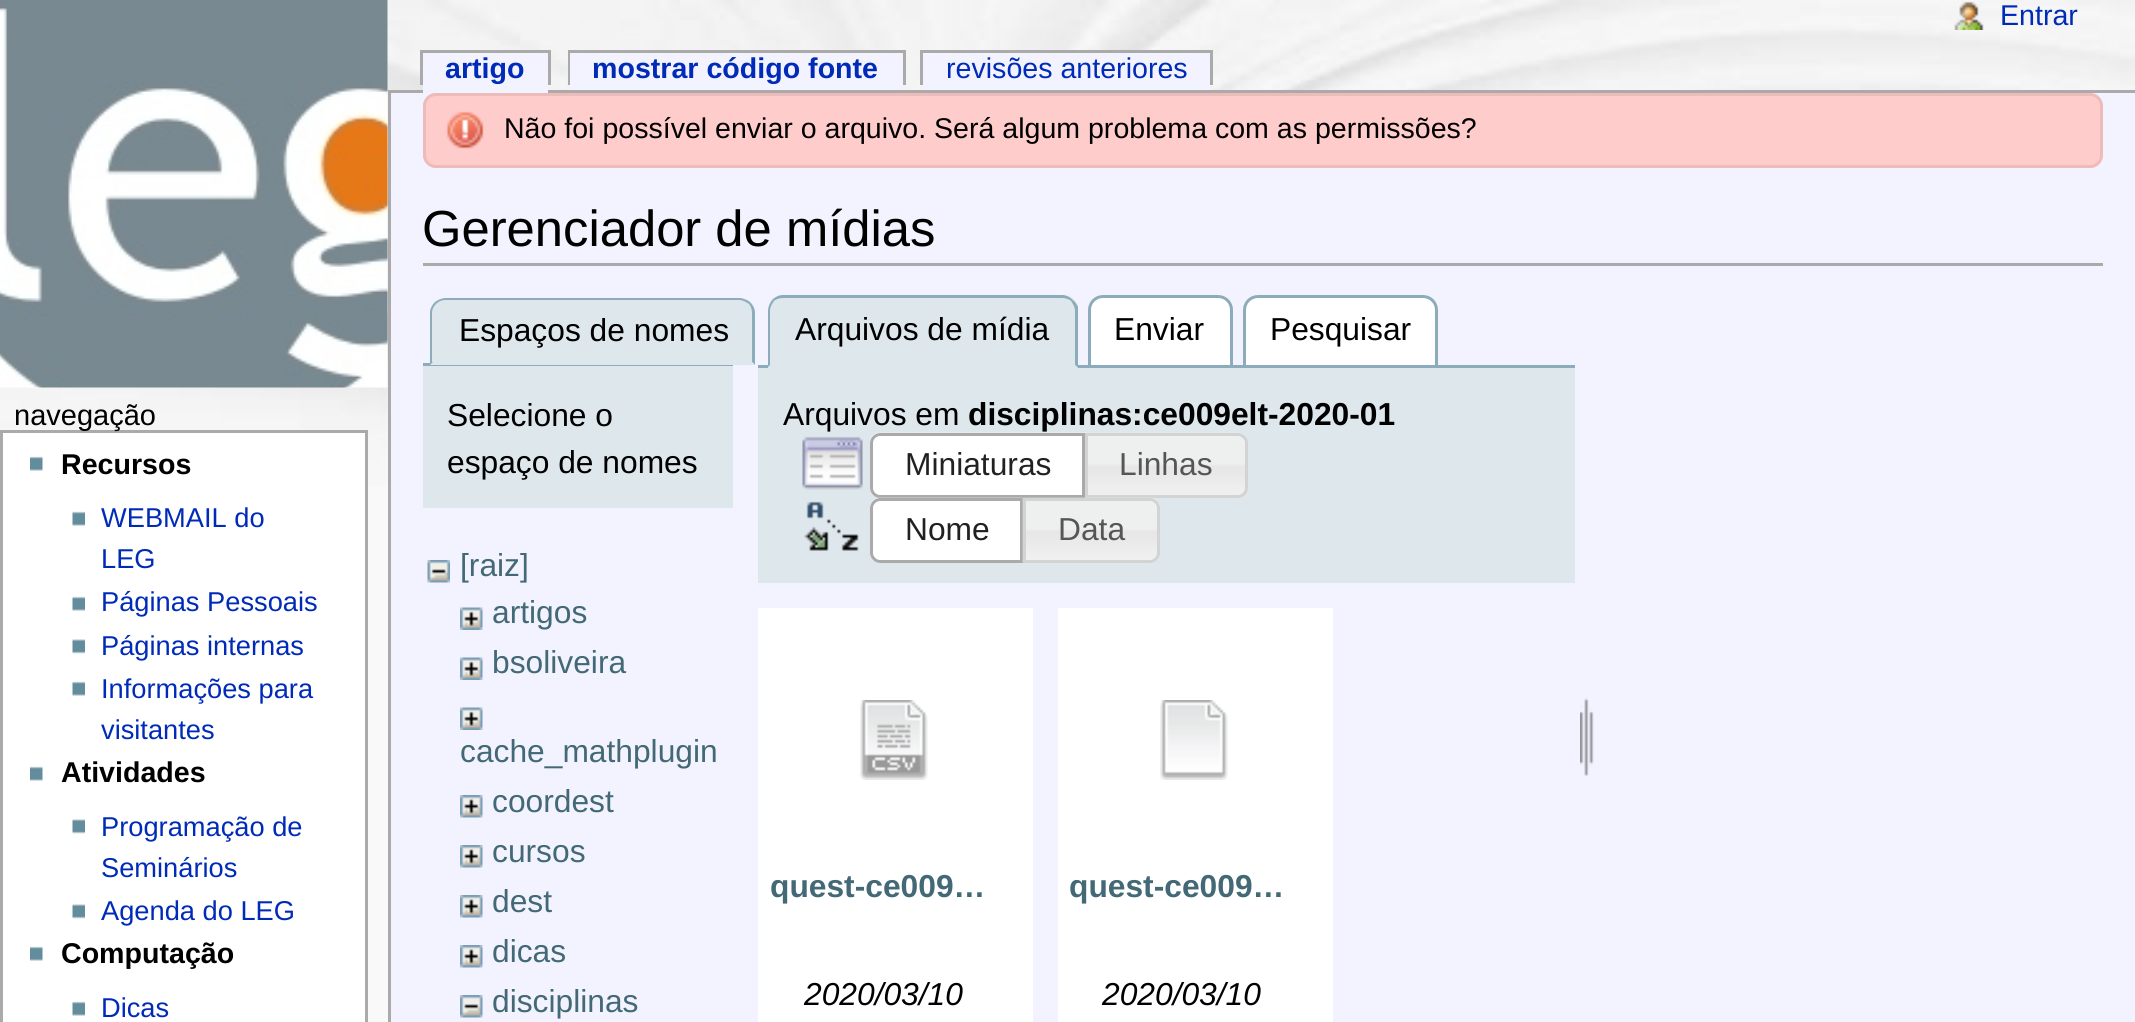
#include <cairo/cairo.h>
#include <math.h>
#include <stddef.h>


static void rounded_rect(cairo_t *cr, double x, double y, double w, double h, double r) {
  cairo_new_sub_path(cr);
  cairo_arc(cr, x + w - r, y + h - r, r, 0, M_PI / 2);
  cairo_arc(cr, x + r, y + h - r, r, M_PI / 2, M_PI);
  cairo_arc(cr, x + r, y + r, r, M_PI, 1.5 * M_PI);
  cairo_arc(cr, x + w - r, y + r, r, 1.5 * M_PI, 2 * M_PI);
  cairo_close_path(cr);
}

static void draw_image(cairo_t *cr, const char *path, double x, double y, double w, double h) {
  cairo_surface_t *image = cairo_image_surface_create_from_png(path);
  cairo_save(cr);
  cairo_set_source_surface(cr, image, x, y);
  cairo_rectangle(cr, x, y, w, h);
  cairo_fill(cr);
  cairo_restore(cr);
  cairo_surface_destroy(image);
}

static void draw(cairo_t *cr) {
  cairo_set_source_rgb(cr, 249 / 255.0, 249 / 255.0, 249 / 255.0);
  cairo_paint(cr);
  draw_image(cr, "images/1.png", 0, 0, 2135, 486);
  draw_image(cr, "images/2.png", 0, 0, 388, 388);
  draw_image(cr, "images/3.png", 1954, 1, 30, 29);
  cairo_set_source_rgb(cr, 170 / 255.0, 170 / 255.0, 170 / 255.0);
  cairo_rectangle(cr, 420, 50, 130, 3);
  cairo_fill(cr);
  cairo_rectangle(cr, 548, 50, 3, 35);
  cairo_fill(cr);
  cairo_rectangle(cr, 420, 50, 3, 35);
  cairo_fill(cr);
  cairo_rectangle(cr, 388, 90, 1747, 3);
  cairo_fill(cr);
  cairo_set_source_rgb(cr, 243 / 255.0, 243 / 255.0, 1);
  cairo_rectangle(cr, 423, 53, 125, 40);
  cairo_fill(cr);
  cairo_set_source_rgb(cr, 170 / 255.0, 170 / 255.0, 170 / 255.0);
  cairo_rectangle(cr, 568, 50, 337, 3);
  cairo_fill(cr);
  cairo_rectangle(cr, 903, 50, 3, 35);
  cairo_fill(cr);
  cairo_rectangle(cr, 568, 50, 3, 35);
  cairo_fill(cr);
  cairo_set_source_rgb(cr, 243 / 255.0, 243 / 255.0, 1);
  cairo_rectangle(cr, 570, 53, 333, 37);
  cairo_fill(cr);
  cairo_set_source_rgb(cr, 170 / 255.0, 170 / 255.0, 170 / 255.0);
  cairo_rectangle(cr, 920, 50, 293, 3);
  cairo_fill(cr);
  cairo_rectangle(cr, 1210, 50, 3, 35);
  cairo_fill(cr);
  cairo_rectangle(cr, 920, 50, 3, 35);
  cairo_fill(cr);
  cairo_set_source_rgb(cr, 243 / 255.0, 243 / 255.0, 1);
  cairo_rectangle(cr, 923, 53, 287, 37);
  cairo_fill(cr);
  cairo_set_source_rgb(cr, 1, 1, 1);
  cairo_rectangle(cr, 1.5, 431.5, 365, 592);
  cairo_fill_preserve(cr);
  cairo_set_source_rgb(cr, 170 / 255.0, 170 / 255.0, 170 / 255.0);
  cairo_set_line_width(cr, 3);
  cairo_stroke(cr);
  draw_image(cr, "images/4.png", 30, 456, 13, 15);
  draw_image(cr, "images/5.png", 72, 511, 13, 15);
  draw_image(cr, "images/6.png", 72, 596, 13, 15);
  draw_image(cr, "images/7.png", 72, 639, 13, 15);
  draw_image(cr, "images/5.png", 72, 681, 13, 15);
  draw_image(cr, "images/4.png", 30, 766, 13, 15);
  draw_image(cr, "images/7.png", 72, 819, 13, 15);
  draw_image(cr, "images/7.png", 72, 904, 13, 15);
  draw_image(cr, "images/4.png", 30, 946, 13, 15);
  draw_image(cr, "images/5.png", 72, 1001, 13, 15);
  cairo_set_source_rgb(cr, 243 / 255.0, 243 / 255.0, 1);
  cairo_rectangle(cr, 391, 93, 1744, 929);
  cairo_fill(cr);
  cairo_set_source_rgb(cr, 170 / 255.0, 170 / 255.0, 170 / 255.0);
  cairo_rectangle(cr, 388, 90, 3, 932);
  cairo_fill(cr);
  cairo_set_source_rgb(cr, 1, 204 / 255.0, 204 / 255.0);
  rounded_rect(cr, 423, 93, 1680, 75, 13);
  cairo_fill(cr);
  draw_image(cr, "images/8.png", 446, 111, 38, 38);
  rounded_rect(cr, 424.5, 94.5, 1677, 72, 11.5);
  cairo_set_source_rgb(cr, 238 / 255.0, 187 / 255.0, 187 / 255.0);
  cairo_stroke(cr);
  cairo_set_source_rgb(cr, 170 / 255.0, 170 / 255.0, 170 / 255.0);
  cairo_rectangle(cr, 423, 263, 1680, 3);
  cairo_fill(cr);
  cairo_set_source_rgb(cr, 140 / 255.0, 172 / 255.0, 187 / 255.0);
  cairo_rectangle(cr, 423, 363, 310, 3);
  cairo_fill(cr);
  cairo_set_source_rgb(cr, 222 / 255.0, 231 / 255.0, 236 / 255.0);
  cairo_new_path(cr);
  cairo_move_to(cr, 445, 298);
  cairo_line_to(cr, 740, 298);
  cairo_curve_to(cr, 748.5, 298, 755, 304.5, 755, 313);
  cairo_line_to(cr, 755, 365);
  cairo_line_to(cr, 430, 365);
  cairo_line_to(cr, 430, 313);
  cairo_curve_to(cr, 430, 304.5, 436.5, 298, 445, 298);
  cairo_close_path(cr);
  cairo_fill(cr);
  cairo_set_source_rgb(cr, 140 / 255.0, 172 / 255.0, 187 / 255.0);
  cairo_new_path(cr);
  cairo_move_to(cr, 446, 298);
  cairo_curve_to(cr, 442, 298, 438, 300, 435, 302);
  cairo_line_to(cr, 436, 304);
  cairo_curve_to(cr, 439, 301, 442, 300, 446, 300);
  cairo_line_to(cr, 739, 300);
  cairo_curve_to(cr, 743, 300, 746, 302, 749, 304);
  cairo_line_to(cr, 750, 302);
  cairo_curve_to(cr, 747, 300, 743, 298, 739, 298);
  cairo_close_path(cr);
  cairo_fill(cr);
  cairo_new_path(cr);
  cairo_move_to(cr, 750, 302);
  cairo_curve_to(cr, 753, 305, 755, 309, 755, 313);
  cairo_line_to(cr, 755, 365);
  cairo_line_to(cr, 752, 362);
  cairo_line_to(cr, 752, 313);
  cairo_curve_to(cr, 752, 310, 751, 306, 749, 304);
  cairo_close_path(cr);
  cairo_fill(cr);
  cairo_set_source_rgb(cr, 222 / 255.0, 231 / 255.0, 236 / 255.0);
  cairo_new_path(cr);
  cairo_move_to(cr, 755, 365);
  cairo_line_to(cr, 752, 362);
  cairo_line_to(cr, 433, 362);
  cairo_line_to(cr, 430, 365);
  cairo_close_path(cr);
  cairo_fill(cr);
  cairo_set_source_rgb(cr, 140 / 255.0, 172 / 255.0, 187 / 255.0);
  cairo_new_path(cr);
  cairo_move_to(cr, 430, 365);
  cairo_line_to(cr, 433, 362);
  cairo_line_to(cr, 432, 362);
  cairo_line_to(cr, 432, 313);
  cairo_curve_to(cr, 432, 309, 434, 306, 436, 304);
  cairo_line_to(cr, 435, 302);
  cairo_curve_to(cr, 432, 305, 430, 309, 430, 313);
  cairo_close_path(cr);
  cairo_fill(cr);
  cairo_set_source_rgb(cr, 222 / 255.0, 231 / 255.0, 236 / 255.0);
  cairo_rectangle(cr, 423, 366, 310, 142);
  cairo_fill(cr);
  draw_image(cr, "images/9.png", 427, 560, 23, 23);
  draw_image(cr, "images/10.png", 460, 607, 23, 23);
  draw_image(cr, "images/10.png", 460, 657, 23, 23);
  draw_image(cr, "images/10.png", 460, 707, 23, 23);
  draw_image(cr, "images/11.png", 460, 795, 23, 23);
  draw_image(cr, "images/11.png", 460, 845, 23, 23);
  draw_image(cr, "images/11.png", 460, 895, 23, 23);
  draw_image(cr, "images/11.png", 460, 945, 23, 23);
  draw_image(cr, "images/12.png", 460, 995, 23, 23);
  cairo_set_source_rgb(cr, 1, 1, 1);
  cairo_new_path(cr);
  cairo_move_to(cr, 1103, 296.5);
  cairo_line_to(cr, 1218, 296.5);
  cairo_curve_to(cr, 1225.5, 296.5, 1231.5, 302.5, 1231.5, 310);
  cairo_line_to(cr, 1231.5, 366.5);
  cairo_line_to(cr, 1089.5, 366.5);
  cairo_line_to(cr, 1089.5, 310);
  cairo_curve_to(cr, 1089.5, 302.5, 1095.5, 296.5, 1103, 296.5);
  cairo_close_path(cr);
  cairo_fill_preserve(cr);
  cairo_set_source_rgb(cr, 140 / 255.0, 172 / 255.0, 187 / 255.0);
  cairo_stroke(cr);
  cairo_set_source_rgb(cr, 1, 1, 1);
  cairo_new_path(cr);
  cairo_move_to(cr, 1258, 296.5);
  cairo_line_to(cr, 1423, 296.5);
  cairo_curve_to(cr, 1430.5, 296.5, 1436.5, 302.5, 1436.5, 310);
  cairo_line_to(cr, 1436.5, 366.5);
  cairo_line_to(cr, 1244.5, 366.5);
  cairo_line_to(cr, 1244.5, 310);
  cairo_curve_to(cr, 1244.5, 302.5, 1250.5, 296.5, 1258, 296.5);
  cairo_close_path(cr);
  cairo_fill_preserve(cr);
  cairo_set_source_rgb(cr, 140 / 255.0, 172 / 255.0, 187 / 255.0);
  cairo_stroke(cr);
  cairo_rectangle(cr, 758, 365, 817, 3);
  cairo_fill(cr);
  cairo_set_source_rgb(cr, 222 / 255.0, 231 / 255.0, 236 / 255.0);
  cairo_new_path(cr);
  cairo_move_to(cr, 783, 295);
  cairo_line_to(cr, 1063, 295);
  cairo_curve_to(cr, 1071.5, 295, 1078, 301.5, 1078, 310);
  cairo_line_to(cr, 1078, 368);
  cairo_line_to(cr, 768, 368);
  cairo_line_to(cr, 768, 310);
  cairo_curve_to(cr, 768, 301.5, 774.5, 295, 783, 295);
  cairo_close_path(cr);
  cairo_fill(cr);
  cairo_set_source_rgb(cr, 140 / 255.0, 172 / 255.0, 187 / 255.0);
  cairo_new_path(cr);
  cairo_move_to(cr, 783, 295);
  cairo_curve_to(cr, 779, 295, 775, 297, 772, 300);
  cairo_line_to(cr, 774, 301);
  cairo_curve_to(cr, 776, 299, 780, 298, 783, 298);
  cairo_line_to(cr, 1062, 298);
  cairo_curve_to(cr, 1065, 298, 1069, 299, 1071, 301);
  cairo_line_to(cr, 1073, 300);
  cairo_curve_to(cr, 1070, 297, 1066, 295, 1062, 295);
  cairo_close_path(cr);
  cairo_fill(cr);
  cairo_new_path(cr);
  cairo_move_to(cr, 1073, 300);
  cairo_curve_to(cr, 1075, 302, 1077, 304, 1078, 307);
  cairo_line_to(cr, 1078, 368);
  cairo_line_to(cr, 1075, 365);
  cairo_line_to(cr, 1075, 311);
  cairo_curve_to(cr, 1075, 307, 1073, 304, 1071, 301);
  cairo_close_path(cr);
  cairo_fill(cr);
  cairo_set_source_rgb(cr, 222 / 255.0, 231 / 255.0, 236 / 255.0);
  cairo_new_path(cr);
  cairo_move_to(cr, 1078, 368);
  cairo_line_to(cr, 768, 368);
  cairo_line_to(cr, 770, 365);
  cairo_line_to(cr, 1075, 365);
  cairo_close_path(cr);
  cairo_fill(cr);
  cairo_set_source_rgb(cr, 140 / 255.0, 172 / 255.0, 187 / 255.0);
  cairo_new_path(cr);
  cairo_move_to(cr, 772, 300);
  cairo_curve_to(cr, 770, 303, 768, 307, 768, 311);
  cairo_line_to(cr, 768, 367);
  cairo_line_to(cr, 770, 365);
  cairo_line_to(cr, 770, 311);
  cairo_curve_to(cr, 770, 307, 772, 304, 774, 301);
  cairo_close_path(cr);
  cairo_fill(cr);
  cairo_set_source_rgb(cr, 222 / 255.0, 231 / 255.0, 236 / 255.0);
  cairo_rectangle(cr, 758, 368, 817, 215);
  cairo_fill(cr);
  draw_image(cr, "images/13.png", 802, 436, 61, 54);
  cairo_set_source_rgb(cr, 1, 1, 1);
  cairo_new_path(cr);
  cairo_move_to(cr, 880, 433);
  cairo_line_to(cr, 1085, 433);
  cairo_line_to(cr, 1085, 498);
  cairo_line_to(cr, 880, 498);
  cairo_curve_to(cr, 874.5, 498, 870, 493.5, 870, 488);
  cairo_line_to(cr, 870, 443);
  cairo_curve_to(cr, 870, 437.5, 874.5, 433, 880, 433);
  cairo_close_path(cr);
  cairo_fill(cr);
  draw_image(cr, "images/14.png", 870, 432, 215, 59);
  cairo_new_path(cr);
  cairo_move_to(cr, 880, 434.5);
  cairo_line_to(cr, 1083.5, 434.5);
  cairo_line_to(cr, 1083.5, 496.5);
  cairo_line_to(cr, 880, 496.5);
  cairo_curve_to(cr, 875.5, 496.5, 871.5, 492.5, 871.5, 488);
  cairo_line_to(cr, 871.5, 443);
  cairo_curve_to(cr, 871.5, 438.5, 875.5, 434.5, 880, 434.5);
  cairo_close_path(cr);
  cairo_set_source_rgb(cr, 170 / 255.0, 170 / 255.0, 170 / 255.0);
  cairo_stroke(cr);
  draw_image(cr, "images/15.png", 1085, 432, 162, 65);
  cairo_new_path(cr);
  cairo_move_to(cr, 1086.5, 434.5);
  cairo_line_to(cr, 1238, 434.5);
  cairo_curve_to(cr, 1242.5, 434.5, 1246.5, 438.5, 1246.5, 443);
  cairo_line_to(cr, 1246.5, 488);
  cairo_curve_to(cr, 1246.5, 492.5, 1242.5, 496.5, 1238, 496.5);
  cairo_line_to(cr, 1086.5, 496.5);
  cairo_close_path(cr);
  cairo_set_source_rgb(cr, 211 / 255.0, 211 / 255.0, 211 / 255.0);
  cairo_stroke(cr);
  draw_image(cr, "images/16.png", 804, 501, 55, 50);
  cairo_set_source_rgb(cr, 1, 1, 1);
  cairo_new_path(cr);
  cairo_move_to(cr, 880, 498);
  cairo_line_to(cr, 1023, 498);
  cairo_line_to(cr, 1023, 563);
  cairo_line_to(cr, 880, 563);
  cairo_curve_to(cr, 874.5, 563, 870, 558.5, 870, 553);
  cairo_line_to(cr, 870, 508);
  cairo_curve_to(cr, 870, 502.5, 874.5, 498, 880, 498);
  cairo_close_path(cr);
  cairo_fill(cr);
  draw_image(cr, "images/17.png", 870, 497, 153, 59);
  cairo_new_path(cr);
  cairo_move_to(cr, 880, 499.5);
  cairo_line_to(cr, 1021.5, 499.5);
  cairo_line_to(cr, 1021.5, 561.5);
  cairo_line_to(cr, 880, 561.5);
  cairo_curve_to(cr, 875.5, 561.5, 871.5, 557.5, 871.5, 553);
  cairo_line_to(cr, 871.5, 508);
  cairo_curve_to(cr, 871.5, 503.5, 875.5, 499.5, 880, 499.5);
  cairo_close_path(cr);
  cairo_set_source_rgb(cr, 170 / 255.0, 170 / 255.0, 170 / 255.0);
  cairo_stroke(cr);
  draw_image(cr, "images/18.png", 1022, 497, 138, 66);
  cairo_new_path(cr);
  cairo_move_to(cr, 1024.5, 499.5);
  cairo_line_to(cr, 1150, 499.5);
  cairo_curve_to(cr, 1154.5, 499.5, 1158.5, 503.5, 1158.5, 508);
  cairo_line_to(cr, 1158.5, 553);
  cairo_curve_to(cr, 1158.5, 557.5, 1154.5, 561.5, 1150, 561.5);
  cairo_line_to(cr, 1024.5, 561.5);
  cairo_close_path(cr);
  cairo_set_source_rgb(cr, 211 / 255.0, 211 / 255.0, 211 / 255.0);
  cairo_stroke(cr);
  draw_image(cr, "images/19.png", 1580, 697, 14, 79);
  cairo_set_source_rgb(cr, 1, 1, 1);
  cairo_rectangle(cr, 758, 608, 275, 414);
  cairo_fill(cr);
  draw_image(cr, "images/20.png", 860, 700, 68, 80);
  cairo_rectangle(cr, 1058, 608, 275, 414);
  cairo_fill(cr);
  draw_image(cr, "images/21.png", 1160, 700, 68, 80);
  cairo_select_font_face(cr, "Liberation Sans", CAIRO_FONT_SLANT_NORMAL, CAIRO_FONT_WEIGHT_NORMAL);
  cairo_set_font_size(cr, 28.6);
  cairo_set_source_rgb(cr, 0, 43 / 255.0, 184 / 255.0);
  cairo_move_to(cr, 2000, 25);
  cairo_show_text(cr, "Entrar");
  cairo_select_font_face(cr, "Liberation Sans", CAIRO_FONT_SLANT_NORMAL, CAIRO_FONT_WEIGHT_BOLD);
  cairo_move_to(cr, 445, 78);
  cairo_show_text(cr, "artigo");
  cairo_move_to(cr, 592, 78);
  cairo_show_text(cr, "mostrar código fonte");
  cairo_select_font_face(cr, "Liberation Sans", CAIRO_FONT_SLANT_NORMAL, CAIRO_FONT_WEIGHT_NORMAL);
  cairo_move_to(cr, 946, 78);
  cairo_show_text(cr, "revisões anteriores");
  cairo_set_font_size(cr, 29);
  cairo_set_source_rgb(cr, 0, 0, 0);
  cairo_move_to(cr, 14, 425);
  cairo_show_text(cr, "navegação");
  cairo_select_font_face(cr, "Liberation Sans", CAIRO_FONT_SLANT_NORMAL, CAIRO_FONT_WEIGHT_BOLD);
  cairo_set_font_size(cr, 28.6);
  cairo_move_to(cr, 61, 474);
  cairo_show_text(cr, "Recursos");
  cairo_select_font_face(cr, "Liberation Sans", CAIRO_FONT_SLANT_NORMAL, CAIRO_FONT_WEIGHT_NORMAL);
  cairo_set_font_size(cr, 27.25);
  cairo_set_source_rgb(cr, 0, 43 / 255.0, 184 / 255.0);
  cairo_move_to(cr, 101, 527);
  cairo_show_text(cr, "WEBMAIL do");
  cairo_move_to(cr, 101, 568);
  cairo_show_text(cr, "LEG");
  cairo_move_to(cr, 101, 611);
  cairo_show_text(cr, "Páginas Pessoais");
  cairo_move_to(cr, 101, 655);
  cairo_show_text(cr, "Páginas internas");
  cairo_move_to(cr, 101, 698);
  cairo_show_text(cr, "Informações para");
  cairo_move_to(cr, 101, 739);
  cairo_show_text(cr, "visitantes");
  cairo_select_font_face(cr, "Liberation Sans", CAIRO_FONT_SLANT_NORMAL, CAIRO_FONT_WEIGHT_BOLD);
  cairo_set_font_size(cr, 28.6);
  cairo_set_source_rgb(cr, 0, 0, 0);
  cairo_move_to(cr, 61, 782);
  cairo_show_text(cr, "Atividades");
  cairo_select_font_face(cr, "Liberation Sans", CAIRO_FONT_SLANT_NORMAL, CAIRO_FONT_WEIGHT_NORMAL);
  cairo_set_font_size(cr, 27.25);
  cairo_set_source_rgb(cr, 0, 43 / 255.0, 184 / 255.0);
  cairo_move_to(cr, 101, 836);
  cairo_show_text(cr, "Programação de");
  cairo_move_to(cr, 101, 877);
  cairo_show_text(cr, "Seminários");
  cairo_move_to(cr, 101, 920);
  cairo_show_text(cr, "Agenda do LEG");
  cairo_select_font_face(cr, "Liberation Sans", CAIRO_FONT_SLANT_NORMAL, CAIRO_FONT_WEIGHT_BOLD);
  cairo_set_font_size(cr, 28.6);
  cairo_set_source_rgb(cr, 0, 0, 0);
  cairo_move_to(cr, 61, 963);
  cairo_show_text(cr, "Computação");
  cairo_select_font_face(cr, "Liberation Sans", CAIRO_FONT_SLANT_NORMAL, CAIRO_FONT_WEIGHT_NORMAL);
  cairo_set_font_size(cr, 27.25);
  cairo_set_source_rgb(cr, 0, 43 / 255.0, 184 / 255.0);
  cairo_move_to(cr, 101, 1017);
  cairo_show_text(cr, "Dicas");
  cairo_set_font_size(cr, 28.55);
  cairo_set_source_rgb(cr, 0, 0, 0);
  cairo_move_to(cr, 504, 138);
  cairo_show_text(cr, "Não foi possível enviar o arquivo. Será algum problema com as permissões?");
  cairo_set_font_size(cr, 50.75);
  cairo_move_to(cr, 422, 246);
  cairo_show_text(cr, "Gerenciador de mídias");
  cairo_set_font_size(cr, 31.75);
  cairo_move_to(cr, 459, 341);
  cairo_show_text(cr, "Espaços de nomes");
  cairo_move_to(cr, 447, 426);
  cairo_show_text(cr, "Selecione o");
  cairo_move_to(cr, 447, 473);
  cairo_show_text(cr, "espaço de nomes");
  cairo_set_source_rgb(cr, 67 / 255.0, 105 / 255.0, 118 / 255.0);
  cairo_move_to(cr, 460, 576);
  cairo_show_text(cr, "[raiz]");
  cairo_move_to(cr, 492, 623);
  cairo_show_text(cr, "artigos");
  cairo_move_to(cr, 492, 673);
  cairo_show_text(cr, "bsoliveira");
  cairo_move_to(cr, 460, 762);
  cairo_show_text(cr, "cache_mathplugin");
  cairo_move_to(cr, 492, 812);
  cairo_show_text(cr, "coordest");
  cairo_move_to(cr, 492, 862);
  cairo_show_text(cr, "cursos");
  cairo_move_to(cr, 492, 912);
  cairo_show_text(cr, "dest");
  cairo_move_to(cr, 492, 962);
  cairo_show_text(cr, "dicas");
  cairo_move_to(cr, 492, 1012);
  cairo_show_text(cr, "disciplinas");
  cairo_set_source_rgb(cr, 0, 0, 0);
  cairo_move_to(cr, 795, 340);
  cairo_show_text(cr, "Arquivos de mídia");
  cairo_move_to(cr, 1114, 340);
  cairo_show_text(cr, "Enviar");
  cairo_move_to(cr, 1270, 340);
  cairo_show_text(cr, "Pesquisar");
  cairo_move_to(cr, 783, 425);
  cairo_show_text(cr, "Arquivos em");
  cairo_select_font_face(cr, "Liberation Sans", CAIRO_FONT_SLANT_NORMAL, CAIRO_FONT_WEIGHT_BOLD);
  cairo_move_to(cr, 968, 425);
  cairo_show_text(cr, "disciplinas:ce009elt-2020-01");
  cairo_select_font_face(cr, "Liberation Sans", CAIRO_FONT_SLANT_NORMAL, CAIRO_FONT_WEIGHT_NORMAL);
  cairo_set_source_rgb(cr, 33 / 255.0, 33 / 255.0, 33 / 255.0);
  cairo_move_to(cr, 905, 475);
  cairo_show_text(cr, "Miniaturas");
  cairo_set_source_rgb(cr, 85 / 255.0, 85 / 255.0, 85 / 255.0);
  cairo_move_to(cr, 1119, 475);
  cairo_show_text(cr, "Linhas");
  cairo_set_source_rgb(cr, 33 / 255.0, 33 / 255.0, 33 / 255.0);
  cairo_move_to(cr, 905, 540);
  cairo_show_text(cr, "Nome");
  cairo_set_source_rgb(cr, 85 / 255.0, 85 / 255.0, 85 / 255.0);
  cairo_move_to(cr, 1058, 540);
  cairo_show_text(cr, "Data");
  cairo_select_font_face(cr, "Liberation Sans", CAIRO_FONT_SLANT_NORMAL, CAIRO_FONT_WEIGHT_BOLD);
  cairo_set_source_rgb(cr, 67 / 255.0, 105 / 255.0, 118 / 255.0);
  cairo_move_to(cr, 770, 897);
  cairo_show_text(cr, "quest-ce009…");
  cairo_select_font_face(cr, "Liberation Sans", CAIRO_FONT_SLANT_ITALIC, CAIRO_FONT_WEIGHT_NORMAL);
  cairo_set_source_rgb(cr, 0, 0, 0);
  cairo_move_to(cr, 804, 1005);
  cairo_show_text(cr, "2020/03/10");
  cairo_select_font_face(cr, "Liberation Sans", CAIRO_FONT_SLANT_NORMAL, CAIRO_FONT_WEIGHT_BOLD);
  cairo_set_source_rgb(cr, 67 / 255.0, 105 / 255.0, 118 / 255.0);
  cairo_move_to(cr, 1069, 897);
  cairo_show_text(cr, "quest-ce009…");
  cairo_select_font_face(cr, "Liberation Sans", CAIRO_FONT_SLANT_ITALIC, CAIRO_FONT_WEIGHT_NORMAL);
  cairo_set_source_rgb(cr, 0, 0, 0);
  cairo_move_to(cr, 1102, 1005);
  cairo_show_text(cr, "2020/03/10");
}

int main(void) {
  cairo_surface_t *surface = cairo_image_surface_create(CAIRO_FORMAT_RGB24, 2135, 1022);
  cairo_t *cr = cairo_create(surface);
  cairo_font_options_t *options = cairo_font_options_create();
  cairo_font_options_set_hint_metrics(options, CAIRO_HINT_METRICS_OFF);
  cairo_font_options_set_hint_style(options, CAIRO_HINT_STYLE_NONE);
  cairo_set_font_options(cr, options);
  cairo_set_miter_limit(cr, 4);
  draw(cr);
  cairo_surface_write_to_png(surface, "out.png");
  cairo_font_options_destroy(options);
  cairo_destroy(cr);
  cairo_surface_destroy(surface);
  return 0;
}
